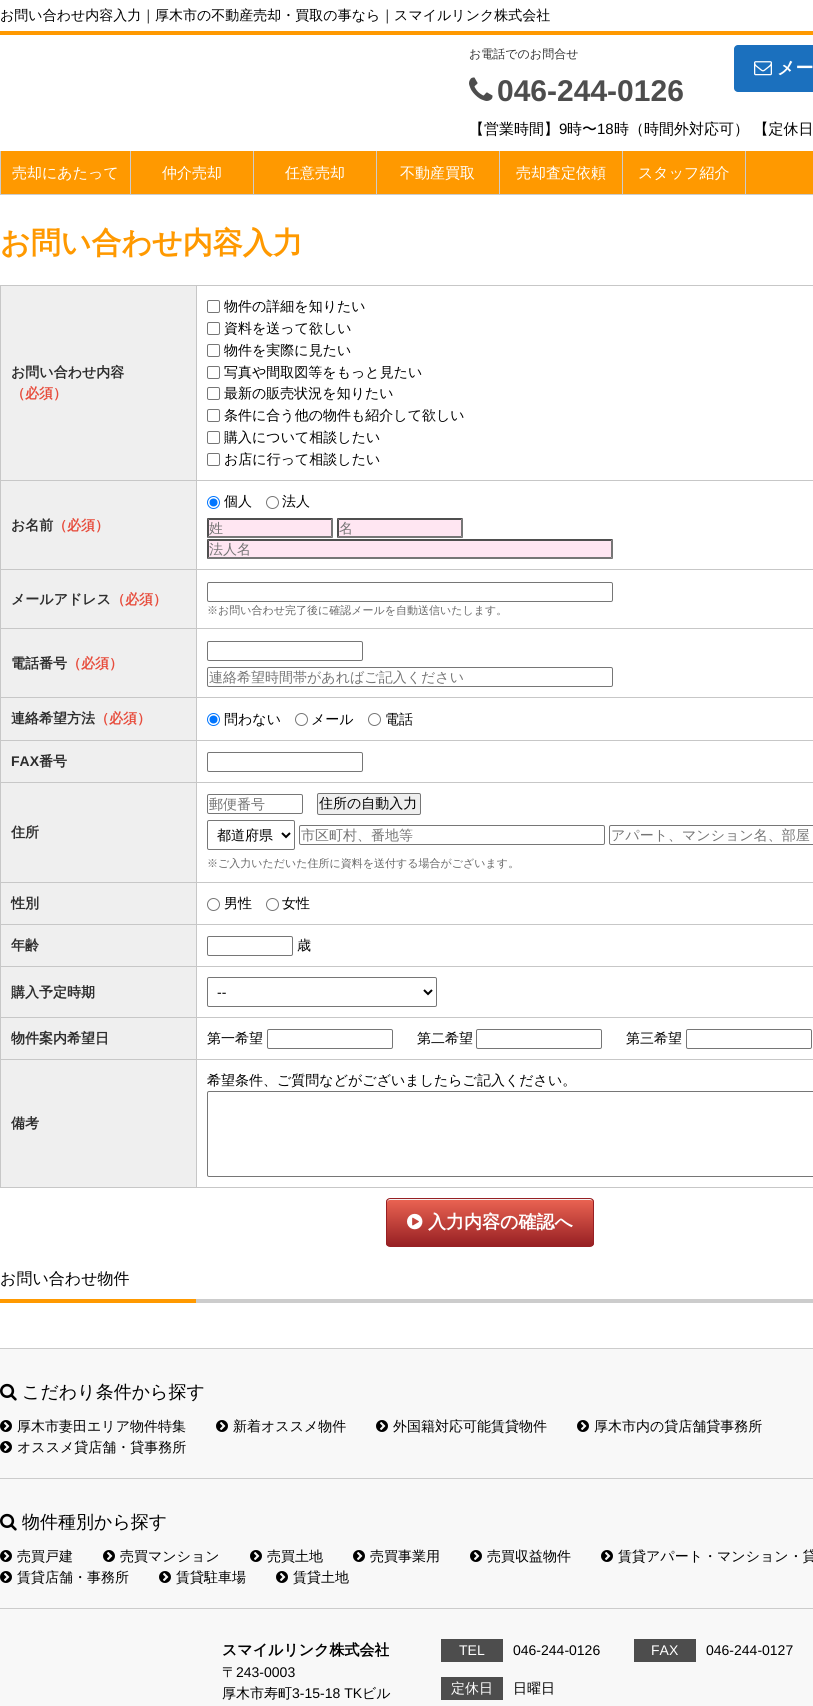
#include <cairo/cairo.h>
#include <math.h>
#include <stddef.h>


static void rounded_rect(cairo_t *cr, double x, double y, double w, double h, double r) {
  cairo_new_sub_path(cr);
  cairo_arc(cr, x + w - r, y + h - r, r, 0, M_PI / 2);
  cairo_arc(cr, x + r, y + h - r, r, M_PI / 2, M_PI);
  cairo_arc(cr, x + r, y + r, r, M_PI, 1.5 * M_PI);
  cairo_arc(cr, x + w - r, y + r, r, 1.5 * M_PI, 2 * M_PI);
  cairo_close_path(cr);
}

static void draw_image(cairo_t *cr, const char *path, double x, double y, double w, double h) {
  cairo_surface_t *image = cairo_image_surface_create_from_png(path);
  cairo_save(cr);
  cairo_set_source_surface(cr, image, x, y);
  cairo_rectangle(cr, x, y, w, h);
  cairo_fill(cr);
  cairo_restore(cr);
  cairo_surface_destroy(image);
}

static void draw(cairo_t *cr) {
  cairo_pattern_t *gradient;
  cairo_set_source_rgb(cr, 1, 1, 1);
  cairo_paint(cr);
  cairo_set_source_rgb(cr, 1, 153 / 255.0, 0);
  cairo_rectangle(cr, 0, 31, 813, 4);
  cairo_fill(cr);
  draw_image(cr, "images/1.png", 469, 77, 24, 24);
  cairo_set_source_rgb(cr, 27 / 255.0, 112 / 255.0, 190 / 255.0);
  rounded_rect(cr, 734, 45, 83, 47, 4);
  cairo_fill(cr);
  draw_image(cr, "images/2.png", 754, 61, 18, 15);
  cairo_set_source_rgb(cr, 1, 153 / 255.0, 0);
  cairo_rectangle(cr, 1, 151, 812, 43);
  cairo_fill(cr);
  cairo_set_source_rgb(cr, 204 / 255.0, 204 / 255.0, 204 / 255.0);
  cairo_rectangle(cr, 0, 194, 813, 1);
  cairo_fill(cr);
  cairo_rectangle(cr, 130, 151, 1, 43);
  cairo_fill(cr);
  cairo_rectangle(cr, 0, 151, 1, 43);
  cairo_fill(cr);
  cairo_rectangle(cr, 253, 151, 1, 43);
  cairo_fill(cr);
  cairo_rectangle(cr, 376, 151, 1, 43);
  cairo_fill(cr);
  cairo_rectangle(cr, 499, 151, 1, 43);
  cairo_fill(cr);
  cairo_rectangle(cr, 622, 151, 1, 43);
  cairo_fill(cr);
  cairo_rectangle(cr, 745, 151, 1, 43);
  cairo_fill(cr);
  cairo_set_source_rgb(cr, 239 / 255.0, 239 / 255.0, 239 / 255.0);
  cairo_rectangle(cr, 1, 286, 195, 194);
  cairo_fill(cr);
  cairo_set_source_rgb(cr, 199 / 255.0, 199 / 255.0, 199 / 255.0);
  cairo_rectangle(cr, 196, 285, 617, 1);
  cairo_fill(cr);
  cairo_rectangle(cr, 196, 480, 617, 1);
  cairo_fill(cr);
  cairo_rectangle(cr, 196, 569, 617, 1);
  cairo_fill(cr);
  cairo_rectangle(cr, 196, 628, 617, 1);
  cairo_fill(cr);
  cairo_rectangle(cr, 196, 697, 617, 1);
  cairo_fill(cr);
  cairo_rectangle(cr, 196, 740, 617, 1);
  cairo_fill(cr);
  cairo_rectangle(cr, 196, 782, 617, 1);
  cairo_fill(cr);
  cairo_rectangle(cr, 196, 882, 617, 1);
  cairo_fill(cr);
  cairo_rectangle(cr, 196, 924, 617, 1);
  cairo_fill(cr);
  cairo_rectangle(cr, 196, 966, 617, 1);
  cairo_fill(cr);
  cairo_rectangle(cr, 196, 1017, 617, 1);
  cairo_fill(cr);
  cairo_rectangle(cr, 196, 1059, 617, 1);
  cairo_fill(cr);
  cairo_rectangle(cr, 196, 1187, 617, 1);
  cairo_fill(cr);
  cairo_rectangle(cr, 196, 1059, 1, 129);
  cairo_fill(cr);
  cairo_rectangle(cr, 0, 1059, 197, 1);
  cairo_fill(cr);
  cairo_rectangle(cr, 196, 1017, 1, 43);
  cairo_fill(cr);
  cairo_rectangle(cr, 0, 1017, 197, 1);
  cairo_fill(cr);
  cairo_rectangle(cr, 196, 966, 1, 52);
  cairo_fill(cr);
  cairo_rectangle(cr, 0, 966, 197, 1);
  cairo_fill(cr);
  cairo_rectangle(cr, 196, 924, 1, 43);
  cairo_fill(cr);
  cairo_rectangle(cr, 0, 924, 197, 1);
  cairo_fill(cr);
  cairo_rectangle(cr, 196, 882, 1, 43);
  cairo_fill(cr);
  cairo_rectangle(cr, 0, 882, 197, 1);
  cairo_fill(cr);
  cairo_rectangle(cr, 196, 782, 1, 101);
  cairo_fill(cr);
  cairo_rectangle(cr, 0, 782, 197, 1);
  cairo_fill(cr);
  cairo_rectangle(cr, 196, 740, 1, 43);
  cairo_fill(cr);
  cairo_rectangle(cr, 0, 740, 197, 1);
  cairo_fill(cr);
  cairo_rectangle(cr, 196, 697, 1, 44);
  cairo_fill(cr);
  cairo_rectangle(cr, 0, 697, 197, 1);
  cairo_fill(cr);
  cairo_rectangle(cr, 196, 628, 1, 70);
  cairo_fill(cr);
  cairo_rectangle(cr, 0, 628, 197, 1);
  cairo_fill(cr);
  cairo_rectangle(cr, 196, 569, 1, 60);
  cairo_fill(cr);
  cairo_rectangle(cr, 0, 569, 197, 1);
  cairo_fill(cr);
  cairo_rectangle(cr, 196, 480, 1, 90);
  cairo_fill(cr);
  cairo_rectangle(cr, 0, 480, 197, 1);
  cairo_fill(cr);
  cairo_rectangle(cr, 196, 285, 1, 196);
  cairo_fill(cr);
  cairo_rectangle(cr, 0, 285, 197, 1);
  cairo_fill(cr);
  cairo_rectangle(cr, 0, 1187, 197, 1);
  cairo_fill(cr);
  cairo_rectangle(cr, 0, 1059, 1, 129);
  cairo_fill(cr);
  cairo_rectangle(cr, 0, 1017, 1, 43);
  cairo_fill(cr);
  cairo_rectangle(cr, 0, 966, 1, 52);
  cairo_fill(cr);
  cairo_rectangle(cr, 0, 924, 1, 43);
  cairo_fill(cr);
  cairo_rectangle(cr, 0, 882, 1, 43);
  cairo_fill(cr);
  cairo_rectangle(cr, 0, 782, 1, 101);
  cairo_fill(cr);
  cairo_rectangle(cr, 0, 740, 1, 43);
  cairo_fill(cr);
  cairo_rectangle(cr, 0, 697, 1, 44);
  cairo_fill(cr);
  cairo_rectangle(cr, 0, 628, 1, 70);
  cairo_fill(cr);
  cairo_rectangle(cr, 0, 569, 1, 60);
  cairo_fill(cr);
  cairo_rectangle(cr, 0, 480, 1, 90);
  cairo_fill(cr);
  cairo_rectangle(cr, 0, 285, 1, 196);
  cairo_fill(cr);
  rounded_rect(cr, 207.5, 300.5, 12, 12, 1.5);
  cairo_set_source_rgb(cr, 118 / 255.0, 118 / 255.0, 118 / 255.0);
  cairo_set_line_width(cr, 1);
  cairo_stroke(cr);
  rounded_rect(cr, 207.5, 322.5, 12, 12, 1.5);
  cairo_stroke(cr);
  rounded_rect(cr, 207.5, 344.5, 12, 12, 1.5);
  cairo_stroke(cr);
  rounded_rect(cr, 207.5, 366.5, 12, 12, 1.5);
  cairo_stroke(cr);
  rounded_rect(cr, 207.5, 387.5, 12, 12, 1.5);
  cairo_stroke(cr);
  rounded_rect(cr, 207.5, 409.5, 12, 12, 1.5);
  cairo_stroke(cr);
  rounded_rect(cr, 207.5, 431.5, 12, 12, 1.5);
  cairo_stroke(cr);
  rounded_rect(cr, 207.5, 453.5, 12, 12, 1.5);
  cairo_stroke(cr);
  cairo_set_source_rgb(cr, 239 / 255.0, 239 / 255.0, 239 / 255.0);
  cairo_rectangle(cr, 1, 481, 195, 88);
  cairo_fill(cr);
  cairo_arc(cr, 213.5, 502.5, 6, 0, 2 * M_PI);
  cairo_set_source_rgb(cr, 0, 117 / 255.0, 1);
  cairo_stroke(cr);
  cairo_arc(cr, 213.5, 502.5, 4, 0, 2 * M_PI);
  cairo_fill(cr);
  cairo_arc(cr, 272.5, 502.5, 6, 0, 2 * M_PI);
  cairo_set_source_rgb(cr, 118 / 255.0, 118 / 255.0, 118 / 255.0);
  cairo_stroke(cr);
  cairo_set_source_rgb(cr, 1, 230 / 255.0, 242 / 255.0);
  cairo_rectangle(cr, 207, 518, 126, 20);
  cairo_fill(cr);
  cairo_set_source_rgb(cr, 79 / 255.0, 79 / 255.0, 79 / 255.0);
  cairo_new_path(cr);
  cairo_move_to(cr, 207, 518);
  cairo_line_to(cr, 333, 518);
  cairo_line_to(cr, 331, 520);
  cairo_line_to(cr, 209, 520);
  cairo_close_path(cr);
  cairo_fill(cr);
  cairo_set_source_rgb(cr, 118 / 255.0, 118 / 255.0, 118 / 255.0);
  cairo_new_path(cr);
  cairo_move_to(cr, 333, 518);
  cairo_line_to(cr, 333, 538);
  cairo_line_to(cr, 331, 536);
  cairo_line_to(cr, 331, 520);
  cairo_close_path(cr);
  cairo_fill(cr);
  cairo_new_path(cr);
  cairo_move_to(cr, 333, 538);
  cairo_line_to(cr, 207, 538);
  cairo_line_to(cr, 209, 536);
  cairo_line_to(cr, 331, 536);
  cairo_close_path(cr);
  cairo_fill(cr);
  cairo_set_source_rgb(cr, 79 / 255.0, 79 / 255.0, 79 / 255.0);
  cairo_new_path(cr);
  cairo_move_to(cr, 207, 538);
  cairo_line_to(cr, 207, 518);
  cairo_line_to(cr, 209, 520);
  cairo_line_to(cr, 209, 536);
  cairo_close_path(cr);
  cairo_fill(cr);
  cairo_set_source_rgb(cr, 1, 230 / 255.0, 242 / 255.0);
  cairo_rectangle(cr, 337, 518, 126, 20);
  cairo_fill(cr);
  cairo_set_source_rgb(cr, 79 / 255.0, 79 / 255.0, 79 / 255.0);
  cairo_new_path(cr);
  cairo_move_to(cr, 337, 518);
  cairo_line_to(cr, 463, 518);
  cairo_line_to(cr, 461, 520);
  cairo_line_to(cr, 339, 520);
  cairo_close_path(cr);
  cairo_fill(cr);
  cairo_set_source_rgb(cr, 118 / 255.0, 118 / 255.0, 118 / 255.0);
  cairo_new_path(cr);
  cairo_move_to(cr, 463, 518);
  cairo_line_to(cr, 463, 538);
  cairo_line_to(cr, 461, 536);
  cairo_line_to(cr, 461, 520);
  cairo_close_path(cr);
  cairo_fill(cr);
  cairo_new_path(cr);
  cairo_move_to(cr, 463, 538);
  cairo_line_to(cr, 337, 538);
  cairo_line_to(cr, 339, 536);
  cairo_line_to(cr, 461, 536);
  cairo_close_path(cr);
  cairo_fill(cr);
  cairo_set_source_rgb(cr, 79 / 255.0, 79 / 255.0, 79 / 255.0);
  cairo_new_path(cr);
  cairo_move_to(cr, 337, 538);
  cairo_line_to(cr, 337, 518);
  cairo_line_to(cr, 339, 520);
  cairo_line_to(cr, 339, 536);
  cairo_close_path(cr);
  cairo_fill(cr);
  cairo_set_source_rgb(cr, 1, 230 / 255.0, 242 / 255.0);
  cairo_rectangle(cr, 207, 539, 406, 20);
  cairo_fill(cr);
  cairo_set_source_rgb(cr, 79 / 255.0, 79 / 255.0, 79 / 255.0);
  cairo_new_path(cr);
  cairo_move_to(cr, 207, 539);
  cairo_line_to(cr, 613, 539);
  cairo_line_to(cr, 611, 541);
  cairo_line_to(cr, 209, 541);
  cairo_close_path(cr);
  cairo_fill(cr);
  cairo_set_source_rgb(cr, 118 / 255.0, 118 / 255.0, 118 / 255.0);
  cairo_new_path(cr);
  cairo_move_to(cr, 613, 539);
  cairo_line_to(cr, 613, 559);
  cairo_line_to(cr, 611, 557);
  cairo_line_to(cr, 611, 541);
  cairo_close_path(cr);
  cairo_fill(cr);
  cairo_new_path(cr);
  cairo_move_to(cr, 613, 559);
  cairo_line_to(cr, 207, 559);
  cairo_line_to(cr, 209, 557);
  cairo_line_to(cr, 611, 557);
  cairo_close_path(cr);
  cairo_fill(cr);
  cairo_set_source_rgb(cr, 79 / 255.0, 79 / 255.0, 79 / 255.0);
  cairo_new_path(cr);
  cairo_move_to(cr, 207, 559);
  cairo_line_to(cr, 207, 539);
  cairo_line_to(cr, 209, 541);
  cairo_line_to(cr, 209, 557);
  cairo_close_path(cr);
  cairo_fill(cr);
  cairo_set_source_rgb(cr, 239 / 255.0, 239 / 255.0, 239 / 255.0);
  cairo_rectangle(cr, 1, 570, 195, 58);
  cairo_fill(cr);
  rounded_rect(cr, 207.5, 582.5, 405, 19, 1.5);
  cairo_set_source_rgb(cr, 118 / 255.0, 118 / 255.0, 118 / 255.0);
  cairo_stroke(cr);
  cairo_set_source_rgb(cr, 239 / 255.0, 239 / 255.0, 239 / 255.0);
  cairo_rectangle(cr, 1, 629, 195, 68);
  cairo_fill(cr);
  rounded_rect(cr, 207.5, 641.5, 155, 19, 1.5);
  cairo_set_source_rgb(cr, 118 / 255.0, 118 / 255.0, 118 / 255.0);
  cairo_stroke(cr);
  rounded_rect(cr, 207.5, 667.5, 405, 19, 1.5);
  cairo_stroke(cr);
  cairo_set_source_rgb(cr, 239 / 255.0, 239 / 255.0, 239 / 255.0);
  cairo_rectangle(cr, 1, 698, 195, 42);
  cairo_fill(cr);
  cairo_arc(cr, 213.5, 719.5, 6, 0, 2 * M_PI);
  cairo_set_source_rgb(cr, 0, 117 / 255.0, 1);
  cairo_stroke(cr);
  cairo_arc(cr, 213.5, 719.5, 4, 0, 2 * M_PI);
  cairo_fill(cr);
  cairo_arc(cr, 301.5, 719.5, 6, 0, 2 * M_PI);
  cairo_set_source_rgb(cr, 118 / 255.0, 118 / 255.0, 118 / 255.0);
  cairo_stroke(cr);
  cairo_arc(cr, 374.5, 719.5, 6, 0, 2 * M_PI);
  cairo_stroke(cr);
  cairo_set_source_rgb(cr, 239 / 255.0, 239 / 255.0, 239 / 255.0);
  cairo_rectangle(cr, 1, 741, 195, 41);
  cairo_fill(cr);
  rounded_rect(cr, 207.5, 752.5, 155, 19, 1.5);
  cairo_set_source_rgb(cr, 118 / 255.0, 118 / 255.0, 118 / 255.0);
  cairo_stroke(cr);
  cairo_set_source_rgb(cr, 239 / 255.0, 239 / 255.0, 239 / 255.0);
  cairo_rectangle(cr, 1, 783, 195, 99);
  cairo_fill(cr);
  rounded_rect(cr, 207.5, 794.5, 95, 19, 1.5);
  cairo_set_source_rgb(cr, 118 / 255.0, 118 / 255.0, 118 / 255.0);
  cairo_stroke(cr);
  cairo_set_source_rgb(cr, 239 / 255.0, 239 / 255.0, 239 / 255.0);
  rounded_rect(cr, 317.5, 793.5, 103, 21, 1.5);
  cairo_fill_preserve(cr);
  cairo_set_source_rgb(cr, 118 / 255.0, 118 / 255.0, 118 / 255.0);
  cairo_stroke(cr);
  rounded_rect(cr, 207.5, 820.5, 87, 29, 1.5);
  cairo_stroke(cr);
  cairo_new_path(cr);
  cairo_move_to(cr, 282, 833);
  cairo_line_to(cr, 286, 837);
  cairo_line_to(cr, 290, 833);
  cairo_set_source_rgb(cr, 0, 0, 0);
  cairo_set_line_width(cr, 2);
  cairo_stroke(cr);
  rounded_rect(cr, 299.5, 825.5, 305, 19, 1.5);
  cairo_set_source_rgb(cr, 118 / 255.0, 118 / 255.0, 118 / 255.0);
  cairo_set_line_width(cr, 1);
  cairo_stroke(cr);
  rounded_rect(cr, 609.5, 825.5, 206, 19, 1.5);
  cairo_stroke(cr);
  cairo_set_source_rgb(cr, 239 / 255.0, 239 / 255.0, 239 / 255.0);
  cairo_rectangle(cr, 1, 883, 195, 41);
  cairo_fill(cr);
  cairo_arc(cr, 213.5, 904.5, 6, 0, 2 * M_PI);
  cairo_set_source_rgb(cr, 118 / 255.0, 118 / 255.0, 118 / 255.0);
  cairo_stroke(cr);
  cairo_arc(cr, 272.5, 904.5, 6, 0, 2 * M_PI);
  cairo_stroke(cr);
  cairo_set_source_rgb(cr, 239 / 255.0, 239 / 255.0, 239 / 255.0);
  cairo_rectangle(cr, 1, 925, 195, 41);
  cairo_fill(cr);
  rounded_rect(cr, 207.5, 936.5, 85, 19, 1.5);
  cairo_set_source_rgb(cr, 118 / 255.0, 118 / 255.0, 118 / 255.0);
  cairo_stroke(cr);
  cairo_set_source_rgb(cr, 239 / 255.0, 239 / 255.0, 239 / 255.0);
  cairo_rectangle(cr, 1, 967, 195, 50);
  cairo_fill(cr);
  rounded_rect(cr, 207.5, 977.5, 229, 29, 1.5);
  cairo_set_source_rgb(cr, 118 / 255.0, 118 / 255.0, 118 / 255.0);
  cairo_stroke(cr);
  cairo_new_path(cr);
  cairo_move_to(cr, 424, 990);
  cairo_line_to(cr, 428, 994);
  cairo_line_to(cr, 432, 990);
  cairo_set_source_rgb(cr, 0, 0, 0);
  cairo_set_line_width(cr, 2);
  cairo_stroke(cr);
  cairo_set_source_rgb(cr, 239 / 255.0, 239 / 255.0, 239 / 255.0);
  cairo_rectangle(cr, 1, 1018, 195, 41);
  cairo_fill(cr);
  rounded_rect(cr, 267.5, 1029.5, 125, 19, 1.5);
  cairo_set_source_rgb(cr, 118 / 255.0, 118 / 255.0, 118 / 255.0);
  cairo_set_line_width(cr, 1);
  cairo_stroke(cr);
  rounded_rect(cr, 476.5, 1029.5, 125, 19, 1.5);
  cairo_stroke(cr);
  rounded_rect(cr, 686.5, 1029.5, 125, 19, 1.5);
  cairo_stroke(cr);
  rounded_rect(cr, 207.5, 1091.5, 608, 85, 1.5);
  cairo_stroke(cr);
  cairo_set_source_rgb(cr, 239 / 255.0, 239 / 255.0, 239 / 255.0);
  cairo_rectangle(cr, 1, 1060, 195, 127);
  cairo_fill(cr);
  cairo_save(cr);
  rounded_rect(cr, 386, 1198, 208, 49, 4);
  cairo_clip(cr);
  gradient = cairo_pattern_create_linear(490, 1199, 490, 1246);
  cairo_pattern_add_color_stop_rgba(gradient, 0, 235 / 255.0, 100 / 255.0, 82 / 255.0, 1);
  cairo_pattern_add_color_stop_rgba(gradient, 1, 151 / 255.0, 32 / 255.0, 36 / 255.0, 1);
  cairo_set_source(cr, gradient);
  cairo_pattern_destroy(gradient);
  cairo_rectangle(cr, 386, 1199, 208, 47);
  cairo_fill(cr);
  cairo_restore(cr);
  cairo_set_source_rgb(cr, 243 / 255.0, 243 / 255.0, 243 / 255.0);
  cairo_new_path(cr);
  cairo_move_to(cr, 390, 1200);
  cairo_line_to(cr, 590, 1200);
  cairo_curve_to(cr, 592, 1200, 593, 1201, 593, 1203);
  cairo_curve_to(cr, 593, 1201, 592, 1199, 590, 1199);
  cairo_line_to(cr, 389, 1199);
  cairo_curve_to(cr, 387, 1200, 387, 1201, 387, 1203);
  cairo_curve_to(cr, 387, 1201, 388, 1200, 390, 1200);
  cairo_close_path(cr);
  cairo_fill(cr);
  rounded_rect(cr, 386.5, 1198.5, 207, 48, 3.5);
  cairo_set_source_rgb(cr, 151 / 255.0, 32 / 255.0, 36 / 255.0);
  cairo_stroke(cr);
  draw_image(cr, "images/3.png", 407, 1213, 16, 17);
  cairo_set_source_rgb(cr, 204 / 255.0, 204 / 255.0, 204 / 255.0);
  cairo_rectangle(cr, 196, 1299, 617, 4);
  cairo_fill(cr);
  cairo_set_source_rgb(cr, 1, 153 / 255.0, 0);
  cairo_rectangle(cr, 0, 1299, 196, 4);
  cairo_fill(cr);
  cairo_set_source_rgb(cr, 248 / 255.0, 248 / 255.0, 248 / 255.0);
  cairo_rectangle(cr, 0, 1349, 813, 357);
  cairo_fill(cr);
  cairo_set_source_rgb(cr, 204 / 255.0, 204 / 255.0, 204 / 255.0);
  cairo_rectangle(cr, 0, 1348, 813, 1);
  cairo_fill(cr);
  cairo_rectangle(cr, 0, 1478, 813, 1);
  cairo_fill(cr);
  draw_image(cr, "images/4.png", 0, 1383, 17, 18);
  draw_image(cr, "images/5.png", 0, 1420, 12, 12);
  draw_image(cr, "images/5.png", 216, 1420, 12, 12);
  draw_image(cr, "images/5.png", 376, 1420, 12, 12);
  draw_image(cr, "images/5.png", 577, 1420, 12, 12);
  draw_image(cr, "images/5.png", 0, 1441, 12, 12);
  cairo_rectangle(cr, 0, 1608, 813, 1);
  cairo_fill(cr);
  draw_image(cr, "images/4.png", 0, 1513, 17, 18);
  draw_image(cr, "images/5.png", 0, 1550, 12, 12);
  draw_image(cr, "images/5.png", 103, 1550, 12, 12);
  draw_image(cr, "images/5.png", 250, 1550, 12, 12);
  draw_image(cr, "images/5.png", 353, 1550, 12, 12);
  draw_image(cr, "images/5.png", 470, 1550, 12, 12);
  draw_image(cr, "images/5.png", 601, 1550, 12, 12);
  draw_image(cr, "images/5.png", 0, 1571, 12, 12);
  draw_image(cr, "images/5.png", 159, 1571, 12, 12);
  draw_image(cr, "images/5.png", 276, 1571, 12, 12);
  cairo_set_source_rgb(cr, 77 / 255.0, 77 / 255.0, 77 / 255.0);
  cairo_rectangle(cr, 441, 1639, 62, 23);
  cairo_fill(cr);
  cairo_rectangle(cr, 634, 1639, 62, 23);
  cairo_fill(cr);
  cairo_rectangle(cr, 441, 1677, 62, 23);
  cairo_fill(cr);
  cairo_select_font_face(cr, "WenQuanYi Zen Hei Medium", CAIRO_FONT_SLANT_NORMAL, CAIRO_FONT_WEIGHT_NORMAL);
  cairo_set_font_size(cr, 14);
  cairo_set_source_rgb(cr, 0, 0, 0);
  cairo_move_to(cr, 0, 20);
  cairo_show_text(cr, "お問い合わせ内容入力｜厚木市の不動産売却・買取の事なら｜スマイルリンク株式会社");
  cairo_set_font_size(cr, 12);
  cairo_set_source_rgb(cr, 51 / 255.0, 51 / 255.0, 51 / 255.0);
  cairo_move_to(cr, 469, 58);
  cairo_show_text(cr, "お電話でのお問合せ");
  cairo_select_font_face(cr, "Liberation Sans", CAIRO_FONT_SLANT_NORMAL, CAIRO_FONT_WEIGHT_BOLD);
  cairo_set_font_size(cr, 30);
  cairo_set_source_rgb(cr, 77 / 255.0, 77 / 255.0, 77 / 255.0);
  cairo_move_to(cr, 497, 101);
  cairo_show_text(cr, "046-244-0126");
  cairo_select_font_face(cr, "WenQuanYi Zen Hei", CAIRO_FONT_SLANT_NORMAL, CAIRO_FONT_WEIGHT_BOLD);
  cairo_set_font_size(cr, 18);
  cairo_set_source_rgb(cr, 1, 1, 1);
  cairo_move_to(cr, 777, 74);
  cairo_show_text(cr, "メー");
  cairo_select_font_face(cr, "WenQuanYi Zen Hei Medium", CAIRO_FONT_SLANT_NORMAL, CAIRO_FONT_WEIGHT_NORMAL);
  cairo_set_font_size(cr, 15);
  cairo_set_source_rgb(cr, 0, 0, 0);
  cairo_move_to(cr, 469, 134);
  cairo_show_text(cr, "【営業時間】");
  cairo_select_font_face(cr, "Liberation Sans", CAIRO_FONT_SLANT_NORMAL, CAIRO_FONT_WEIGHT_NORMAL);
  cairo_move_to(cr, 559, 134);
  cairo_show_text(cr, "9");
  cairo_select_font_face(cr, "WenQuanYi Zen Hei Medium", CAIRO_FONT_SLANT_NORMAL, CAIRO_FONT_WEIGHT_NORMAL);
  cairo_move_to(cr, 567, 134);
  cairo_show_text(cr, "時〜");
  cairo_select_font_face(cr, "Liberation Sans", CAIRO_FONT_SLANT_NORMAL, CAIRO_FONT_WEIGHT_NORMAL);
  cairo_move_to(cr, 597, 134);
  cairo_show_text(cr, "18");
  cairo_select_font_face(cr, "WenQuanYi Zen Hei Medium", CAIRO_FONT_SLANT_NORMAL, CAIRO_FONT_WEIGHT_NORMAL);
  cairo_move_to(cr, 614, 134);
  cairo_show_text(cr, "時（時間外対応可） 【定休日");
  cairo_set_source_rgb(cr, 1, 1, 1);
  cairo_move_to(cr, 12, 178);
  cairo_show_text(cr, "売却にあたって");
  cairo_move_to(cr, 162, 178);
  cairo_show_text(cr, "仲介売却");
  cairo_move_to(cr, 285, 178);
  cairo_show_text(cr, "任意売却");
  cairo_move_to(cr, 400, 178);
  cairo_show_text(cr, "不動産買取");
  cairo_move_to(cr, 516, 178);
  cairo_show_text(cr, "売却査定依頼");
  cairo_move_to(cr, 638, 178);
  cairo_show_text(cr, "スタッフ紹介");
  cairo_select_font_face(cr, "WenQuanYi Zen Hei", CAIRO_FONT_SLANT_NORMAL, CAIRO_FONT_WEIGHT_BOLD);
  cairo_set_font_size(cr, 30);
  cairo_set_source_rgb(cr, 1, 153 / 255.0, 0);
  cairo_move_to(cr, 0, 253);
  cairo_show_text(cr, "お問い合わせ内容入力");
  cairo_set_font_size(cr, 14);
  cairo_set_source_rgb(cr, 45 / 255.0, 45 / 255.0, 45 / 255.0);
  cairo_move_to(cr, 11, 377);
  cairo_show_text(cr, "お問い合わせ内容");
  cairo_set_source_rgb(cr, 231 / 255.0, 76 / 255.0, 60 / 255.0);
  cairo_move_to(cr, 11, 398);
  cairo_show_text(cr, "（必須）");
  cairo_select_font_face(cr, "WenQuanYi Zen Hei Medium", CAIRO_FONT_SLANT_NORMAL, CAIRO_FONT_WEIGHT_NORMAL);
  cairo_set_source_rgb(cr, 0, 0, 0);
  cairo_move_to(cr, 224, 311);
  cairo_show_text(cr, "物件の詳細を知りたい");
  cairo_move_to(cr, 224, 333);
  cairo_show_text(cr, "資料を送って欲しい");
  cairo_move_to(cr, 224, 355);
  cairo_show_text(cr, "物件を実際に見たい");
  cairo_move_to(cr, 224, 377);
  cairo_show_text(cr, "写真や間取図等をもっと見たい");
  cairo_move_to(cr, 224, 398);
  cairo_show_text(cr, "最新の販売状況を知りたい");
  cairo_move_to(cr, 224, 420);
  cairo_show_text(cr, "条件に合う他の物件も紹介して欲しい");
  cairo_move_to(cr, 224, 442);
  cairo_show_text(cr, "購入について相談したい");
  cairo_move_to(cr, 224, 464);
  cairo_show_text(cr, "お店に行って相談したい");
  cairo_select_font_face(cr, "WenQuanYi Zen Hei", CAIRO_FONT_SLANT_NORMAL, CAIRO_FONT_WEIGHT_BOLD);
  cairo_set_source_rgb(cr, 45 / 255.0, 45 / 255.0, 45 / 255.0);
  cairo_move_to(cr, 11, 530);
  cairo_show_text(cr, "お名前");
  cairo_set_source_rgb(cr, 231 / 255.0, 76 / 255.0, 60 / 255.0);
  cairo_move_to(cr, 53, 530);
  cairo_show_text(cr, "（必須）");
  cairo_select_font_face(cr, "WenQuanYi Zen Hei Medium", CAIRO_FONT_SLANT_NORMAL, CAIRO_FONT_WEIGHT_NORMAL);
  cairo_set_source_rgb(cr, 0, 0, 0);
  cairo_move_to(cr, 224, 506);
  cairo_show_text(cr, "個人");
  cairo_move_to(cr, 282, 506);
  cairo_show_text(cr, "法人");
  cairo_set_source_rgb(cr, 117 / 255.0, 117 / 255.0, 117 / 255.0);
  cairo_move_to(cr, 209, 533);
  cairo_show_text(cr, "姓");
  cairo_move_to(cr, 339, 533);
  cairo_show_text(cr, "名");
  cairo_move_to(cr, 209, 554);
  cairo_show_text(cr, "法人名");
  cairo_select_font_face(cr, "WenQuanYi Zen Hei", CAIRO_FONT_SLANT_NORMAL, CAIRO_FONT_WEIGHT_BOLD);
  cairo_set_source_rgb(cr, 45 / 255.0, 45 / 255.0, 45 / 255.0);
  cairo_move_to(cr, 11, 604);
  cairo_show_text(cr, "メールアドレス");
  cairo_set_source_rgb(cr, 231 / 255.0, 76 / 255.0, 60 / 255.0);
  cairo_move_to(cr, 111, 604);
  cairo_show_text(cr, "（必須）");
  cairo_select_font_face(cr, "WenQuanYi Zen Hei Medium", CAIRO_FONT_SLANT_NORMAL, CAIRO_FONT_WEIGHT_NORMAL);
  cairo_set_font_size(cr, 11);
  cairo_set_source_rgb(cr, 102 / 255.0, 102 / 255.0, 102 / 255.0);
  cairo_move_to(cr, 207, 614);
  cairo_show_text(cr, "※お問い合わせ完了後に確認メールを自動送信いたします。");
  cairo_select_font_face(cr, "WenQuanYi Zen Hei", CAIRO_FONT_SLANT_NORMAL, CAIRO_FONT_WEIGHT_BOLD);
  cairo_set_font_size(cr, 14);
  cairo_set_source_rgb(cr, 45 / 255.0, 45 / 255.0, 45 / 255.0);
  cairo_move_to(cr, 11, 668);
  cairo_show_text(cr, "電話番号");
  cairo_set_source_rgb(cr, 231 / 255.0, 76 / 255.0, 60 / 255.0);
  cairo_move_to(cr, 67, 668);
  cairo_show_text(cr, "（必須）");
  cairo_select_font_face(cr, "WenQuanYi Zen Hei Medium", CAIRO_FONT_SLANT_NORMAL, CAIRO_FONT_WEIGHT_NORMAL);
  cairo_set_source_rgb(cr, 117 / 255.0, 117 / 255.0, 117 / 255.0);
  cairo_move_to(cr, 209, 682);
  cairo_show_text(cr, "連絡希望時間帯があればご記入ください");
  cairo_select_font_face(cr, "WenQuanYi Zen Hei", CAIRO_FONT_SLANT_NORMAL, CAIRO_FONT_WEIGHT_BOLD);
  cairo_set_source_rgb(cr, 45 / 255.0, 45 / 255.0, 45 / 255.0);
  cairo_move_to(cr, 11, 723);
  cairo_show_text(cr, "連絡希望方法");
  cairo_set_source_rgb(cr, 231 / 255.0, 76 / 255.0, 60 / 255.0);
  cairo_move_to(cr, 95, 723);
  cairo_show_text(cr, "（必須）");
  cairo_select_font_face(cr, "WenQuanYi Zen Hei Medium", CAIRO_FONT_SLANT_NORMAL, CAIRO_FONT_WEIGHT_NORMAL);
  cairo_set_source_rgb(cr, 0, 0, 0);
  cairo_move_to(cr, 224, 724);
  cairo_show_text(cr, "問わない");
  cairo_move_to(cr, 311, 724);
  cairo_show_text(cr, "メール");
  cairo_move_to(cr, 385, 724);
  cairo_show_text(cr, "電話");
  cairo_select_font_face(cr, "Liberation Sans", CAIRO_FONT_SLANT_NORMAL, CAIRO_FONT_WEIGHT_BOLD);
  cairo_set_source_rgb(cr, 45 / 255.0, 45 / 255.0, 45 / 255.0);
  cairo_move_to(cr, 11, 766);
  cairo_show_text(cr, "FAX");
  cairo_select_font_face(cr, "WenQuanYi Zen Hei", CAIRO_FONT_SLANT_NORMAL, CAIRO_FONT_WEIGHT_BOLD);
  cairo_move_to(cr, 39, 766);
  cairo_show_text(cr, "番号");
  cairo_move_to(cr, 11, 837);
  cairo_show_text(cr, "住所");
  cairo_select_font_face(cr, "WenQuanYi Zen Hei Medium", CAIRO_FONT_SLANT_NORMAL, CAIRO_FONT_WEIGHT_NORMAL);
  cairo_set_source_rgb(cr, 117 / 255.0, 117 / 255.0, 117 / 255.0);
  cairo_move_to(cr, 209, 809);
  cairo_show_text(cr, "郵便番号");
  cairo_set_source_rgb(cr, 0, 0, 0);
  cairo_move_to(cr, 319, 808);
  cairo_show_text(cr, "住所の自動入力");
  cairo_move_to(cr, 217, 840);
  cairo_show_text(cr, "都道府県");
  cairo_set_source_rgb(cr, 117 / 255.0, 117 / 255.0, 117 / 255.0);
  cairo_move_to(cr, 301, 840);
  cairo_show_text(cr, "市区町村、番地等");
  cairo_move_to(cr, 611, 840);
  cairo_show_text(cr, "アパート、マンション名、部屋");
  cairo_set_font_size(cr, 11);
  cairo_set_source_rgb(cr, 102 / 255.0, 102 / 255.0, 102 / 255.0);
  cairo_move_to(cr, 207, 867);
  cairo_show_text(cr, "※ご入力いただいた住所に資料を送付する場合がございます。");
  cairo_select_font_face(cr, "WenQuanYi Zen Hei", CAIRO_FONT_SLANT_NORMAL, CAIRO_FONT_WEIGHT_BOLD);
  cairo_set_font_size(cr, 14);
  cairo_set_source_rgb(cr, 45 / 255.0, 45 / 255.0, 45 / 255.0);
  cairo_move_to(cr, 11, 908);
  cairo_show_text(cr, "性別");
  cairo_select_font_face(cr, "WenQuanYi Zen Hei Medium", CAIRO_FONT_SLANT_NORMAL, CAIRO_FONT_WEIGHT_NORMAL);
  cairo_set_source_rgb(cr, 0, 0, 0);
  cairo_move_to(cr, 224, 908);
  cairo_show_text(cr, "男性");
  cairo_move_to(cr, 282, 908);
  cairo_show_text(cr, "女性");
  cairo_select_font_face(cr, "WenQuanYi Zen Hei", CAIRO_FONT_SLANT_NORMAL, CAIRO_FONT_WEIGHT_BOLD);
  cairo_set_source_rgb(cr, 45 / 255.0, 45 / 255.0, 45 / 255.0);
  cairo_move_to(cr, 11, 950);
  cairo_show_text(cr, "年齢");
  cairo_select_font_face(cr, "WenQuanYi Zen Hei Medium", CAIRO_FONT_SLANT_NORMAL, CAIRO_FONT_WEIGHT_NORMAL);
  cairo_set_source_rgb(cr, 0, 0, 0);
  cairo_move_to(cr, 297, 950);
  cairo_show_text(cr, "歳");
  cairo_select_font_face(cr, "WenQuanYi Zen Hei", CAIRO_FONT_SLANT_NORMAL, CAIRO_FONT_WEIGHT_BOLD);
  cairo_set_source_rgb(cr, 45 / 255.0, 45 / 255.0, 45 / 255.0);
  cairo_move_to(cr, 11, 997);
  cairo_show_text(cr, "購入予定時期");
  cairo_select_font_face(cr, "Liberation Sans", CAIRO_FONT_SLANT_NORMAL, CAIRO_FONT_WEIGHT_NORMAL);
  cairo_set_source_rgb(cr, 0, 0, 0);
  cairo_move_to(cr, 217, 997);
  cairo_show_text(cr, "--");
  cairo_select_font_face(cr, "WenQuanYi Zen Hei", CAIRO_FONT_SLANT_NORMAL, CAIRO_FONT_WEIGHT_BOLD);
  cairo_set_source_rgb(cr, 45 / 255.0, 45 / 255.0, 45 / 255.0);
  cairo_move_to(cr, 11, 1043);
  cairo_show_text(cr, "物件案内希望日");
  cairo_select_font_face(cr, "WenQuanYi Zen Hei Medium", CAIRO_FONT_SLANT_NORMAL, CAIRO_FONT_WEIGHT_NORMAL);
  cairo_set_source_rgb(cr, 0, 0, 0);
  cairo_move_to(cr, 207, 1043);
  cairo_show_text(cr, "第一希望");
  cairo_move_to(cr, 417, 1043);
  cairo_show_text(cr, "第二希望");
  cairo_move_to(cr, 626, 1043);
  cairo_show_text(cr, "第三希望");
  cairo_move_to(cr, 207, 1085);
  cairo_show_text(cr, "希望条件、ご質問などがございましたらご記入ください。");
  cairo_select_font_face(cr, "WenQuanYi Zen Hei", CAIRO_FONT_SLANT_NORMAL, CAIRO_FONT_WEIGHT_BOLD);
  cairo_set_source_rgb(cr, 45 / 255.0, 45 / 255.0, 45 / 255.0);
  cairo_move_to(cr, 11, 1128);
  cairo_show_text(cr, "備考");
  cairo_set_font_size(cr, 18);
  cairo_set_source_rgb(cr, 1, 1, 1);
  cairo_move_to(cr, 428, 1228);
  cairo_show_text(cr, "入力内容の確認へ");
  cairo_select_font_face(cr, "WenQuanYi Zen Hei Medium", CAIRO_FONT_SLANT_NORMAL, CAIRO_FONT_WEIGHT_NORMAL);
  cairo_set_font_size(cr, 16);
  cairo_set_source_rgb(cr, 0, 0, 0);
  cairo_move_to(cr, 0, 1284);
  cairo_show_text(cr, "お問い合わせ物件");
  cairo_set_font_size(cr, 18);
  cairo_move_to(cr, 22, 1398);
  cairo_show_text(cr, "こだわり条件から探す");
  cairo_set_font_size(cr, 14);
  cairo_move_to(cr, 17, 1431);
  cairo_show_text(cr, "厚木市妻田エリア物件特集");
  cairo_move_to(cr, 233, 1431);
  cairo_show_text(cr, "新着オススメ物件");
  cairo_move_to(cr, 393, 1431);
  cairo_show_text(cr, "外国籍対応可能賃貸物件");
  cairo_move_to(cr, 594, 1431);
  cairo_show_text(cr, "厚木市内の貸店舗貸事務所");
  cairo_move_to(cr, 17, 1452);
  cairo_show_text(cr, "オススメ貸店舗・貸事務所");
  cairo_set_font_size(cr, 18);
  cairo_move_to(cr, 22, 1528);
  cairo_show_text(cr, "物件種別から探す");
  cairo_set_font_size(cr, 14);
  cairo_move_to(cr, 17, 1561);
  cairo_show_text(cr, "売買戸建");
  cairo_move_to(cr, 120, 1561);
  cairo_show_text(cr, "売買マンション");
  cairo_move_to(cr, 267, 1561);
  cairo_show_text(cr, "売買土地");
  cairo_move_to(cr, 370, 1561);
  cairo_show_text(cr, "売買事業用");
  cairo_move_to(cr, 487, 1561);
  cairo_show_text(cr, "売買収益物件");
  cairo_move_to(cr, 618, 1561);
  cairo_show_text(cr, "賃貸アパート・マンション・貸");
  cairo_move_to(cr, 17, 1582);
  cairo_show_text(cr, "賃貸店舗・事務所");
  cairo_move_to(cr, 176, 1582);
  cairo_show_text(cr, "賃貸駐車場");
  cairo_move_to(cr, 293, 1582);
  cairo_show_text(cr, "賃貸土地");
  cairo_select_font_face(cr, "WenQuanYi Zen Hei", CAIRO_FONT_SLANT_NORMAL, CAIRO_FONT_WEIGHT_BOLD);
  cairo_set_font_size(cr, 15);
  cairo_move_to(cr, 222, 1655);
  cairo_show_text(cr, "スマイルリンク株式会社");
  cairo_select_font_face(cr, "WenQuanYi Zen Hei Medium", CAIRO_FONT_SLANT_NORMAL, CAIRO_FONT_WEIGHT_NORMAL);
  cairo_set_font_size(cr, 14);
  cairo_move_to(cr, 222, 1677);
  cairo_show_text(cr, "〒");
  cairo_select_font_face(cr, "Liberation Sans", CAIRO_FONT_SLANT_NORMAL, CAIRO_FONT_WEIGHT_NORMAL);
  cairo_move_to(cr, 236, 1677);
  cairo_show_text(cr, "243-0003");
  cairo_select_font_face(cr, "WenQuanYi Zen Hei Medium", CAIRO_FONT_SLANT_NORMAL, CAIRO_FONT_WEIGHT_NORMAL);
  cairo_move_to(cr, 222, 1698);
  cairo_show_text(cr, "厚木市寿町");
  cairo_select_font_face(cr, "Liberation Sans", CAIRO_FONT_SLANT_NORMAL, CAIRO_FONT_WEIGHT_NORMAL);
  cairo_move_to(cr, 292, 1698);
  cairo_show_text(cr, "3-15-18 TK");
  cairo_select_font_face(cr, "WenQuanYi Zen Hei Medium", CAIRO_FONT_SLANT_NORMAL, CAIRO_FONT_WEIGHT_NORMAL);
  cairo_move_to(cr, 362, 1698);
  cairo_show_text(cr, "ビル");
  cairo_select_font_face(cr, "Liberation Sans", CAIRO_FONT_SLANT_NORMAL, CAIRO_FONT_WEIGHT_NORMAL);
  cairo_set_source_rgb(cr, 1, 1, 1);
  cairo_move_to(cr, 459, 1655);
  cairo_show_text(cr, "TEL");
  cairo_set_source_rgb(cr, 0, 0, 0);
  cairo_move_to(cr, 513, 1655);
  cairo_show_text(cr, "046-244-0126");
  cairo_set_source_rgb(cr, 1, 1, 1);
  cairo_move_to(cr, 651, 1655);
  cairo_show_text(cr, "FAX");
  cairo_set_source_rgb(cr, 0, 0, 0);
  cairo_move_to(cr, 706, 1655);
  cairo_show_text(cr, "046-244-0127");
  cairo_select_font_face(cr, "WenQuanYi Zen Hei Medium", CAIRO_FONT_SLANT_NORMAL, CAIRO_FONT_WEIGHT_NORMAL);
  cairo_set_source_rgb(cr, 1, 1, 1);
  cairo_move_to(cr, 451, 1693);
  cairo_show_text(cr, "定休日");
  cairo_set_source_rgb(cr, 0, 0, 0);
  cairo_move_to(cr, 513, 1693);
  cairo_show_text(cr, "日曜日");
}

int main(void) {
  cairo_surface_t *surface = cairo_image_surface_create(CAIRO_FORMAT_RGB24, 813, 1706);
  cairo_t *cr = cairo_create(surface);
  cairo_font_options_t *options = cairo_font_options_create();
  cairo_font_options_set_hint_metrics(options, CAIRO_HINT_METRICS_OFF);
  cairo_font_options_set_hint_style(options, CAIRO_HINT_STYLE_NONE);
  cairo_set_font_options(cr, options);
  cairo_set_miter_limit(cr, 4);
  draw(cr);
  cairo_surface_write_to_png(surface, "out.png");
  cairo_font_options_destroy(options);
  cairo_destroy(cr);
  cairo_surface_destroy(surface);
  return 0;
}
